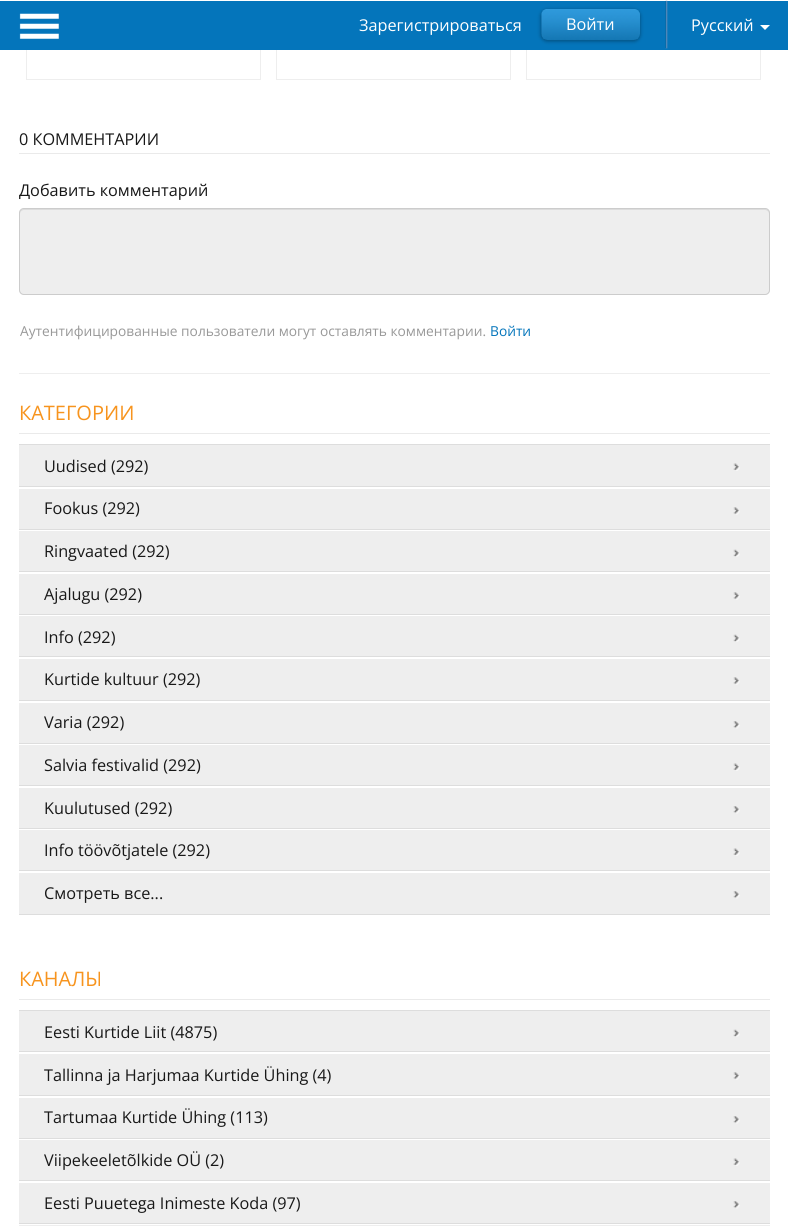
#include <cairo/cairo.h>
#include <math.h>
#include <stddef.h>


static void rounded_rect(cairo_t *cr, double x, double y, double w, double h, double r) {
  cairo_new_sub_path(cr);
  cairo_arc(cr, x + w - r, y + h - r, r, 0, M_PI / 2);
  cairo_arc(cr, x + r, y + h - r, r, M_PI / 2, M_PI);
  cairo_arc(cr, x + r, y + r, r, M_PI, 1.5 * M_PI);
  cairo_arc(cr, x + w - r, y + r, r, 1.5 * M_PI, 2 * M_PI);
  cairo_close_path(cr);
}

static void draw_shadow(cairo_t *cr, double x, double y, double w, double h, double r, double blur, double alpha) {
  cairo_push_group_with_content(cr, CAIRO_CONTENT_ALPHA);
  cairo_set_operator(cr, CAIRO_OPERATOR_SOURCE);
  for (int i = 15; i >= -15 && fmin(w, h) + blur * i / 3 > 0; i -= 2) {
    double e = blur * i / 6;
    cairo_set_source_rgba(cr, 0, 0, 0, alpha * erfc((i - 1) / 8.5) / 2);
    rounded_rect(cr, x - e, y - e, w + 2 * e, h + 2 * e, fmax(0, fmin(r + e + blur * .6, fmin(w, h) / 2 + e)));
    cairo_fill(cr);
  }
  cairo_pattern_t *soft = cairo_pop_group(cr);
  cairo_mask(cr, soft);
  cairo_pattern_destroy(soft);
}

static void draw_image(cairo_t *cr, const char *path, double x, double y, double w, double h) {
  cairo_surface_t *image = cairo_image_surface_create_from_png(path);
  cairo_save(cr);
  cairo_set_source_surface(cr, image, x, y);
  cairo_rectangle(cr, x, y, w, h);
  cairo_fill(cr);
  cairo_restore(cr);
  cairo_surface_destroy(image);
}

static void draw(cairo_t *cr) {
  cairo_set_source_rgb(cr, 1, 1, 1);
  cairo_paint(cr);
  cairo_rectangle(cr, 26.5, -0.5, 234, 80);
  cairo_set_source_rgb(cr, 238 / 255.0, 238 / 255.0, 238 / 255.0);
  cairo_set_line_width(cr, 1);
  cairo_stroke(cr);
  cairo_rectangle(cr, 276.5, -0.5, 234, 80);
  cairo_stroke(cr);
  cairo_rectangle(cr, 526.5, -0.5, 234, 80);
  cairo_stroke(cr);
  cairo_set_source_rgb(cr, 4 / 255.0, 117 / 255.0, 187 / 255.0);
  cairo_rectangle(cr, 0, 1, 788, 49);
  cairo_fill(cr);
  cairo_set_source_rgb(cr, 1, 1, 1);
  cairo_rectangle(cr, 26, 0, 735, 1);
  cairo_fill(cr);
  draw_image(cr, "images/1.png", 19, 13, 40, 26);
  cairo_set_source_rgb(cr, 3 / 255.0, 3 / 255.0, 3 / 255.0);
  draw_shadow(cr, 541, 10, 99, 31, 6, 2, 0.38);
  draw_image(cr, "images/2.png", 541, 9, 99, 31);
  cairo_set_source_rgb(cr, 111 / 255.0, 142 / 255.0, 184 / 255.0);
  draw_shadow(cr, 666, 1, 1, 47, 0, 0.5, 1);
  cairo_set_source_rgb(cr, 8 / 255.0, 108 / 255.0, 169 / 255.0);
  cairo_rectangle(cr, 665, 1, 1, 47);
  cairo_fill(cr);
  cairo_set_source_rgb(cr, 1, 1, 1);
  cairo_new_path(cr);
  cairo_move_to(cr, 760, 25);
  cairo_line_to(cr, 770, 25);
  cairo_line_to(cr, 765, 30);
  cairo_close_path(cr);
  cairo_fill(cr);
  cairo_set_source_rgb(cr, 234 / 255.0, 234 / 255.0, 234 / 255.0);
  cairo_rectangle(cr, 19, 153, 751, 1);
  cairo_fill(cr);
  cairo_set_source_rgb(cr, 238 / 255.0, 238 / 255.0, 238 / 255.0);
  cairo_rectangle(cr, 19, 373, 751, 1);
  cairo_fill(cr);
  rounded_rect(cr, 19, 208, 751, 87, 5);
  cairo_fill(cr);
  cairo_set_source_rgb(cr, 220 / 255.0, 220 / 255.0, 220 / 255.0);
  cairo_new_path(cr);
  cairo_move_to(cr, 24, 210);
  cairo_line_to(cr, 765, 210);
  cairo_curve_to(cr, 767, 210, 769, 212, 769, 214);
  cairo_curve_to(cr, 769, 211, 768, 209, 765, 209);
  cairo_line_to(cr, 24, 209);
  cairo_curve_to(cr, 21, 209, 20, 211, 20, 214);
  cairo_curve_to(cr, 20, 212, 22, 210, 24, 210);
  cairo_close_path(cr);
  cairo_fill(cr);
  rounded_rect(cr, 19.5, 208.5, 750, 86, 4.5);
  cairo_set_source_rgb(cr, 204 / 255.0, 204 / 255.0, 204 / 255.0);
  cairo_stroke(cr);
  cairo_set_source_rgb(cr, 234 / 255.0, 234 / 255.0, 234 / 255.0);
  cairo_rectangle(cr, 19, 433, 751, 1);
  cairo_fill(cr);
  cairo_set_source_rgb(cr, 221 / 255.0, 221 / 255.0, 221 / 255.0);
  cairo_rectangle(cr, 19, 444, 751, 1);
  cairo_fill(cr);
  cairo_rectangle(cr, 19, 486, 751, 1);
  cairo_fill(cr);
  cairo_set_source_rgb(cr, 238 / 255.0, 238 / 255.0, 238 / 255.0);
  cairo_rectangle(cr, 19, 445, 751, 41);
  cairo_fill(cr);
  draw_image(cr, "images/3.png", 733, 463, 7, 8);
  cairo_set_source_rgb(cr, 221 / 255.0, 221 / 255.0, 221 / 255.0);
  cairo_rectangle(cr, 19, 529, 751, 1);
  cairo_fill(cr);
  cairo_set_source_rgb(cr, 238 / 255.0, 238 / 255.0, 238 / 255.0);
  cairo_rectangle(cr, 19, 489, 751, 40);
  cairo_fill(cr);
  draw_image(cr, "images/4.png", 733, 507, 7, 8);
  cairo_set_source_rgb(cr, 221 / 255.0, 221 / 255.0, 221 / 255.0);
  cairo_rectangle(cr, 19, 571, 751, 1);
  cairo_fill(cr);
  cairo_set_source_rgb(cr, 238 / 255.0, 238 / 255.0, 238 / 255.0);
  cairo_rectangle(cr, 19, 531, 751, 40);
  cairo_fill(cr);
  draw_image(cr, "images/5.png", 733, 549, 7, 8);
  cairo_set_source_rgb(cr, 221 / 255.0, 221 / 255.0, 221 / 255.0);
  cairo_rectangle(cr, 19, 614, 751, 1);
  cairo_fill(cr);
  cairo_set_source_rgb(cr, 238 / 255.0, 238 / 255.0, 238 / 255.0);
  cairo_rectangle(cr, 19, 574, 751, 40);
  cairo_fill(cr);
  draw_image(cr, "images/4.png", 733, 592, 7, 8);
  cairo_set_source_rgb(cr, 221 / 255.0, 221 / 255.0, 221 / 255.0);
  cairo_rectangle(cr, 19, 656, 751, 1);
  cairo_fill(cr);
  cairo_set_source_rgb(cr, 238 / 255.0, 238 / 255.0, 238 / 255.0);
  cairo_rectangle(cr, 19, 616, 751, 40);
  cairo_fill(cr);
  draw_image(cr, "images/5.png", 733, 634, 7, 8);
  cairo_set_source_rgb(cr, 221 / 255.0, 221 / 255.0, 221 / 255.0);
  cairo_rectangle(cr, 19, 700, 751, 1);
  cairo_fill(cr);
  cairo_set_source_rgb(cr, 238 / 255.0, 238 / 255.0, 238 / 255.0);
  cairo_rectangle(cr, 19, 659, 751, 41);
  cairo_fill(cr);
  draw_image(cr, "images/4.png", 733, 677, 7, 8);
  cairo_set_source_rgb(cr, 221 / 255.0, 221 / 255.0, 221 / 255.0);
  cairo_rectangle(cr, 19, 743, 751, 1);
  cairo_fill(cr);
  cairo_set_source_rgb(cr, 238 / 255.0, 238 / 255.0, 238 / 255.0);
  cairo_rectangle(cr, 19, 703, 751, 40);
  cairo_fill(cr);
  draw_image(cr, "images/6.png", 733, 721, 7, 8);
  cairo_set_source_rgb(cr, 221 / 255.0, 221 / 255.0, 221 / 255.0);
  cairo_rectangle(cr, 19, 785, 751, 1);
  cairo_fill(cr);
  cairo_set_source_rgb(cr, 238 / 255.0, 238 / 255.0, 238 / 255.0);
  cairo_rectangle(cr, 19, 745, 751, 40);
  cairo_fill(cr);
  draw_image(cr, "images/3.png", 733, 763, 7, 8);
  cairo_set_source_rgb(cr, 221 / 255.0, 221 / 255.0, 221 / 255.0);
  cairo_rectangle(cr, 19, 828, 751, 1);
  cairo_fill(cr);
  cairo_set_source_rgb(cr, 238 / 255.0, 238 / 255.0, 238 / 255.0);
  cairo_rectangle(cr, 19, 788, 751, 40);
  cairo_fill(cr);
  draw_image(cr, "images/6.png", 733, 806, 7, 8);
  cairo_set_source_rgb(cr, 221 / 255.0, 221 / 255.0, 221 / 255.0);
  cairo_rectangle(cr, 19, 870, 751, 1);
  cairo_fill(cr);
  cairo_set_source_rgb(cr, 238 / 255.0, 238 / 255.0, 238 / 255.0);
  cairo_rectangle(cr, 19, 830, 751, 40);
  cairo_fill(cr);
  draw_image(cr, "images/3.png", 733, 848, 7, 8);
  cairo_set_source_rgb(cr, 221 / 255.0, 221 / 255.0, 221 / 255.0);
  cairo_rectangle(cr, 19, 914, 751, 1);
  cairo_fill(cr);
  cairo_set_source_rgb(cr, 238 / 255.0, 238 / 255.0, 238 / 255.0);
  cairo_rectangle(cr, 19, 873, 751, 41);
  cairo_fill(cr);
  draw_image(cr, "images/6.png", 733, 891, 7, 8);
  cairo_set_source_rgb(cr, 234 / 255.0, 234 / 255.0, 234 / 255.0);
  cairo_rectangle(cr, 19, 999, 751, 1);
  cairo_fill(cr);
  cairo_set_source_rgb(cr, 221 / 255.0, 221 / 255.0, 221 / 255.0);
  cairo_rectangle(cr, 19, 1010, 751, 1);
  cairo_fill(cr);
  cairo_rectangle(cr, 19, 1051, 751, 1);
  cairo_fill(cr);
  cairo_set_source_rgb(cr, 238 / 255.0, 238 / 255.0, 238 / 255.0);
  cairo_rectangle(cr, 19, 1011, 751, 40);
  cairo_fill(cr);
  draw_image(cr, "images/5.png", 733, 1029, 7, 8);
  cairo_set_source_rgb(cr, 221 / 255.0, 221 / 255.0, 221 / 255.0);
  cairo_rectangle(cr, 19, 1095, 751, 1);
  cairo_fill(cr);
  cairo_set_source_rgb(cr, 238 / 255.0, 238 / 255.0, 238 / 255.0);
  cairo_rectangle(cr, 19, 1054, 751, 41);
  cairo_fill(cr);
  draw_image(cr, "images/4.png", 733, 1072, 7, 8);
  cairo_set_source_rgb(cr, 221 / 255.0, 221 / 255.0, 221 / 255.0);
  cairo_rectangle(cr, 19, 1138, 751, 1);
  cairo_fill(cr);
  cairo_set_source_rgb(cr, 238 / 255.0, 238 / 255.0, 238 / 255.0);
  cairo_rectangle(cr, 19, 1098, 751, 40);
  cairo_fill(cr);
  draw_image(cr, "images/6.png", 733, 1116, 7, 8);
  cairo_set_source_rgb(cr, 221 / 255.0, 221 / 255.0, 221 / 255.0);
  cairo_rectangle(cr, 19, 1180, 751, 1);
  cairo_fill(cr);
  cairo_set_source_rgb(cr, 238 / 255.0, 238 / 255.0, 238 / 255.0);
  cairo_rectangle(cr, 19, 1140, 751, 40);
  cairo_fill(cr);
  draw_image(cr, "images/3.png", 733, 1158, 7, 8);
  cairo_set_source_rgb(cr, 221 / 255.0, 221 / 255.0, 221 / 255.0);
  cairo_rectangle(cr, 19, 1223, 751, 1);
  cairo_fill(cr);
  cairo_set_source_rgb(cr, 238 / 255.0, 238 / 255.0, 238 / 255.0);
  cairo_rectangle(cr, 19, 1183, 751, 40);
  cairo_fill(cr);
  draw_image(cr, "images/6.png", 733, 1201, 7, 8);
  cairo_rectangle(cr, 19, 1225, 751, 1);
  cairo_fill(cr);
  cairo_select_font_face(cr, "Open Sans", CAIRO_FONT_SLANT_NORMAL, CAIRO_FONT_WEIGHT_NORMAL);
  cairo_set_font_size(cr, 16.25);
  cairo_set_source_rgb(cr, 1, 1, 1);
  cairo_move_to(cr, 359, 31);
  cairo_show_text(cr, "Зарегистрироваться");
  cairo_move_to(cr, 566, 30);
  cairo_show_text(cr, "Войти");
  cairo_move_to(cr, 691, 31);
  cairo_show_text(cr, "Русский");
  cairo_set_source_rgb(cr, 24 / 255.0, 24 / 255.0, 24 / 255.0);
  cairo_move_to(cr, 19, 145);
  cairo_show_text(cr, "0 КОММЕНТАРИИ");
  cairo_move_to(cr, 19, 196);
  cairo_show_text(cr, "Добавить комментарий");
  cairo_set_font_size(cr, 13.75);
  cairo_set_source_rgb(cr, 153 / 255.0, 153 / 255.0, 153 / 255.0);
  cairo_move_to(cr, 20, 336);
  cairo_show_text(cr, "Аутентифицированные пользователи могут оставлять комментарии.");
  cairo_set_source_rgb(cr, 4 / 255.0, 117 / 255.0, 187 / 255.0);
  cairo_move_to(cr, 490, 336);
  cairo_show_text(cr, "Войти");
  cairo_set_font_size(cr, 20);
  cairo_set_source_rgb(cr, 247 / 255.0, 148 / 255.0, 30 / 255.0);
  cairo_move_to(cr, 19, 420);
  cairo_show_text(cr, "КАТЕГОРИИ");
  cairo_set_font_size(cr, 16.25);
  cairo_set_source_rgb(cr, 24 / 255.0, 24 / 255.0, 24 / 255.0);
  cairo_move_to(cr, 44, 472);
  cairo_show_text(cr, "Uudised (292)");
  cairo_move_to(cr, 44, 514);
  cairo_show_text(cr, "Fookus (292)");
  cairo_move_to(cr, 44, 557);
  cairo_show_text(cr, "Ringvaated (292)");
  cairo_move_to(cr, 44, 600);
  cairo_show_text(cr, "Ajalugu (292)");
  cairo_move_to(cr, 44, 643);
  cairo_show_text(cr, "Info (292)");
  cairo_move_to(cr, 44, 685);
  cairo_show_text(cr, "Kurtide kultuur (292)");
  cairo_move_to(cr, 44, 728);
  cairo_show_text(cr, "Varia (292)");
  cairo_move_to(cr, 44, 771);
  cairo_show_text(cr, "Salvia festivalid (292)");
  cairo_move_to(cr, 44, 814);
  cairo_show_text(cr, "Kuulutused (292)");
  cairo_move_to(cr, 44, 856);
  cairo_show_text(cr, "Info töövõtjatele (292)");
  cairo_move_to(cr, 44, 899);
  cairo_show_text(cr, "Смотреть все...");
  cairo_set_font_size(cr, 20);
  cairo_set_source_rgb(cr, 247 / 255.0, 148 / 255.0, 30 / 255.0);
  cairo_move_to(cr, 19, 986);
  cairo_show_text(cr, "КАНАЛЫ");
  cairo_set_font_size(cr, 16.25);
  cairo_set_source_rgb(cr, 24 / 255.0, 24 / 255.0, 24 / 255.0);
  cairo_move_to(cr, 44, 1038);
  cairo_show_text(cr, "Eesti Kurtide Liit (4875)");
  cairo_move_to(cr, 44, 1081);
  cairo_show_text(cr, "Tallinna ja Harjumaa Kurtide Ühing (4)");
  cairo_move_to(cr, 44, 1123);
  cairo_show_text(cr, "Tartumaa Kurtide Ühing (113)");
  cairo_move_to(cr, 44, 1166);
  cairo_show_text(cr, "Viipekeeletõlkide OÜ (2)");
  cairo_move_to(cr, 44, 1209);
  cairo_show_text(cr, "Eesti Puuetega Inimeste Koda (97)");
}

int main(void) {
  cairo_surface_t *surface = cairo_image_surface_create(CAIRO_FORMAT_RGB24, 788, 1226);
  cairo_t *cr = cairo_create(surface);
  cairo_font_options_t *options = cairo_font_options_create();
  cairo_font_options_set_hint_metrics(options, CAIRO_HINT_METRICS_OFF);
  cairo_font_options_set_hint_style(options, CAIRO_HINT_STYLE_NONE);
  cairo_set_font_options(cr, options);
  cairo_set_miter_limit(cr, 4);
  draw(cr);
  cairo_surface_write_to_png(surface, "out.png");
  cairo_font_options_destroy(options);
  cairo_destroy(cr);
  cairo_surface_destroy(surface);
  return 0;
}
